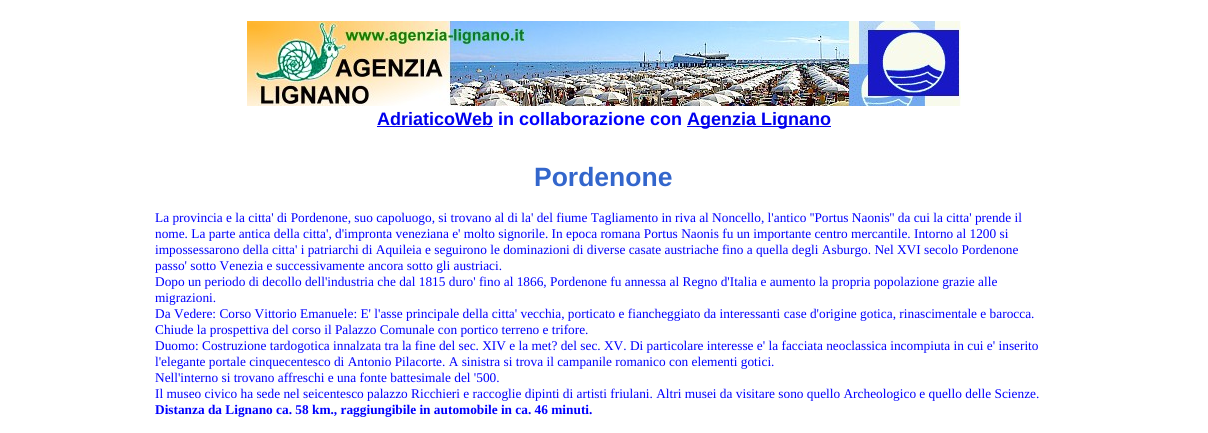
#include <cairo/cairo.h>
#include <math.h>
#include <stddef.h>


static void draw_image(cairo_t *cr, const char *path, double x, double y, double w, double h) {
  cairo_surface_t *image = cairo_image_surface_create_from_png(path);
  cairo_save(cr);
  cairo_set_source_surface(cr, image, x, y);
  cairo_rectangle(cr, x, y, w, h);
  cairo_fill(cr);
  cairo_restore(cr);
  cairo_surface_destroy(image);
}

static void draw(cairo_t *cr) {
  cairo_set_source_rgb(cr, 1, 1, 1);
  cairo_paint(cr);
  draw_image(cr, "images/1.png", 247, 21, 714, 85);
  cairo_set_source_rgb(cr, 0, 0, 238 / 255.0);
  cairo_rectangle(cr, 377, 126, 116, 1);
  cairo_fill(cr);
  cairo_rectangle(cr, 687, 126, 144, 1);
  cairo_fill(cr);
  cairo_select_font_face(cr, "Liberation Sans", CAIRO_FONT_SLANT_NORMAL, CAIRO_FONT_WEIGHT_BOLD);
  cairo_set_font_size(cr, 18);
  cairo_move_to(cr, 377, 125);
  cairo_show_text(cr, "AdriaticoWeb");
  cairo_set_source_rgb(cr, 0, 0, 1);
  cairo_move_to(cr, 498, 125);
  cairo_show_text(cr, "in collaborazione con");
  cairo_set_source_rgb(cr, 0, 0, 238 / 255.0);
  cairo_move_to(cr, 687, 125);
  cairo_show_text(cr, "Agenzia Lignano");
  cairo_set_font_size(cr, 26.5);
  cairo_set_source_rgb(cr, 51 / 255.0, 102 / 255.0, 204 / 255.0);
  cairo_move_to(cr, 534, 186);
  cairo_show_text(cr, "Pordenone");
  cairo_select_font_face(cr, "Liberation Serif", CAIRO_FONT_SLANT_NORMAL, CAIRO_FONT_WEIGHT_NORMAL);
  cairo_set_font_size(cr, 13.33);
  cairo_set_source_rgb(cr, 0, 0, 1);
  cairo_move_to(cr, 155, 222);
  cairo_show_text(cr, "La provincia e la citta' di Pordenone, suo capoluogo, si trovano al di la' del fiume Tagliamento in riva al Noncello, l'antico ''Portus Naonis'' da cui la citta' prende il");
  cairo_move_to(cr, 155, 238);
  cairo_show_text(cr, "nome. La parte antica della citta', d'impronta veneziana e' molto signorile. In epoca romana Portus Naonis fu un importante centro mercantile. Intorno al 1200 si");
  cairo_move_to(cr, 155, 254);
  cairo_show_text(cr, "impossessarono della citta' i patriarchi di Aquileia e seguirono le dominazioni di diverse casate austriache fino a quella degli Asburgo. Nel XVI secolo Pordenone");
  cairo_move_to(cr, 155, 270);
  cairo_show_text(cr, "passo' sotto Venezia e successivamente ancora sotto gli austriaci.");
  cairo_move_to(cr, 155, 286);
  cairo_show_text(cr, "Dopo un periodo di decollo dell'industria che dal 1815 duro' fino al 1866, Pordenone fu annessa al Regno d'Italia e aumento la propria popolazione grazie alle");
  cairo_move_to(cr, 155, 302);
  cairo_show_text(cr, "migrazioni.");
  cairo_move_to(cr, 155, 318);
  cairo_show_text(cr, "Da Vedere: Corso Vittorio Emanuele: E' l'asse principale della citta' vecchia, porticato e fiancheggiato da interessanti case d'origine gotica, rinascimentale e barocca.");
  cairo_move_to(cr, 155, 334);
  cairo_show_text(cr, "Chiude la prospettiva del corso il Palazzo Comunale con portico terreno e trifore.");
  cairo_move_to(cr, 155, 350);
  cairo_show_text(cr, "Duomo: Costruzione tardogotica innalzata tra la fine del sec. XIV e la met? del sec. XV. Di particolare interesse e' la facciata neoclassica incompiuta in cui e' inserito");
  cairo_move_to(cr, 155, 366);
  cairo_show_text(cr, "l'elegante portale cinquecentesco di Antonio Pilacorte. A sinistra si trova il campanile romanico con elementi gotici.");
  cairo_move_to(cr, 155, 382);
  cairo_show_text(cr, "Nell'interno si trovano affreschi e una fonte battesimale del '500.");
  cairo_move_to(cr, 155, 398);
  cairo_show_text(cr, "Il museo civico ha sede nel seicentesco palazzo Ricchieri e raccoglie dipinti di artisti friulani. Altri musei da visitare sono quello Archeologico e quello delle Scienze.");
  cairo_select_font_face(cr, "Liberation Serif", CAIRO_FONT_SLANT_NORMAL, CAIRO_FONT_WEIGHT_BOLD);
  cairo_move_to(cr, 155, 414);
  cairo_show_text(cr, "Distanza da Lignano ca. 58 km., raggiungibile in automobile in ca. 46 minuti.");
}

int main(void) {
  cairo_surface_t *surface = cairo_image_surface_create(CAIRO_FORMAT_RGB24, 1208, 433);
  cairo_t *cr = cairo_create(surface);
  cairo_font_options_t *options = cairo_font_options_create();
  cairo_font_options_set_hint_metrics(options, CAIRO_HINT_METRICS_OFF);
  cairo_font_options_set_hint_style(options, CAIRO_HINT_STYLE_NONE);
  cairo_set_font_options(cr, options);
  cairo_set_miter_limit(cr, 4);
  draw(cr);
  cairo_surface_write_to_png(surface, "out.png");
  cairo_font_options_destroy(options);
  cairo_destroy(cr);
  cairo_surface_destroy(surface);
  return 0;
}
